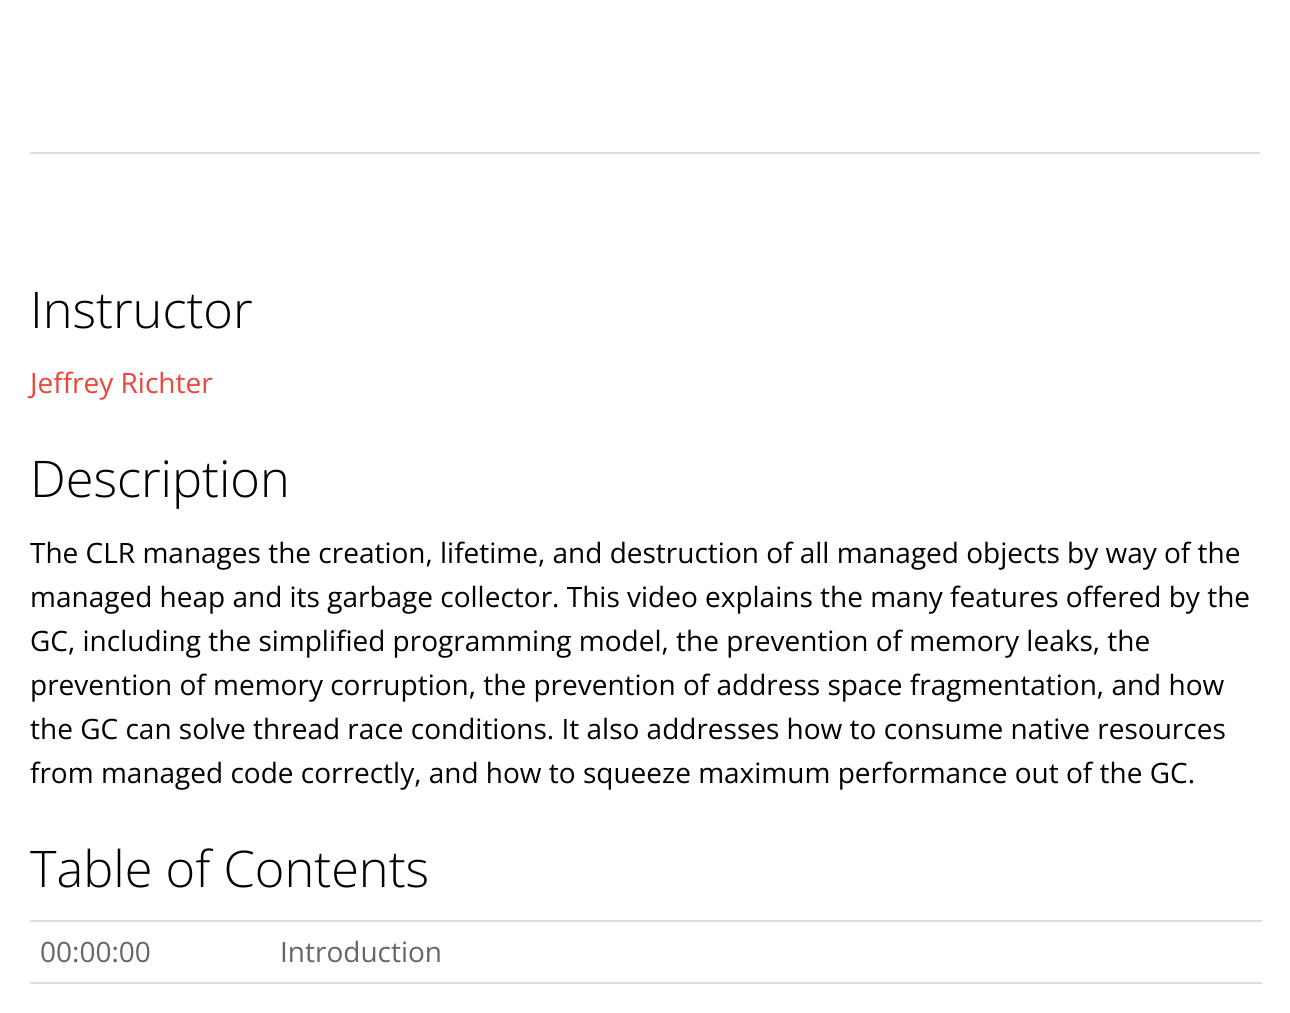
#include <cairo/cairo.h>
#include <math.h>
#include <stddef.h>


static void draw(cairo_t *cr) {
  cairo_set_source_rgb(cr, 1, 1, 1);
  cairo_paint(cr);
  cairo_set_source_rgb(cr, 221 / 255.0, 221 / 255.0, 221 / 255.0);
  cairo_rectangle(cr, 30, 152, 1230, 2);
  cairo_fill(cr);
  cairo_rectangle(cr, 30, 920, 1232, 2);
  cairo_fill(cr);
  cairo_rectangle(cr, 30, 982, 1232, 2);
  cairo_fill(cr);
  cairo_select_font_face(cr, "Open Sans Light", CAIRO_FONT_SLANT_NORMAL, CAIRO_FONT_WEIGHT_NORMAL);
  cairo_set_font_size(cr, 50.5);
  cairo_set_source_rgb(cr, 0, 0, 0);
  cairo_move_to(cr, 30, 328);
  cairo_show_text(cr, "Instructor");
  cairo_select_font_face(cr, "Open Sans", CAIRO_FONT_SLANT_NORMAL, CAIRO_FONT_WEIGHT_NORMAL);
  cairo_set_font_size(cr, 28);
  cairo_set_source_rgb(cr, 239 / 255.0, 68 / 255.0, 57 / 255.0);
  cairo_move_to(cr, 30, 393);
  cairo_show_text(cr, "Jeffrey Richter");
  cairo_select_font_face(cr, "Open Sans Light", CAIRO_FONT_SLANT_NORMAL, CAIRO_FONT_WEIGHT_NORMAL);
  cairo_set_font_size(cr, 50.5);
  cairo_set_source_rgb(cr, 0, 0, 0);
  cairo_move_to(cr, 30, 497);
  cairo_show_text(cr, "Description");
  cairo_select_font_face(cr, "Open Sans", CAIRO_FONT_SLANT_NORMAL, CAIRO_FONT_WEIGHT_NORMAL);
  cairo_set_font_size(cr, 28);
  cairo_move_to(cr, 30, 563);
  cairo_show_text(cr, "The CLR manages the creation, lifetime, and destruction of all managed objects by way of the");
  cairo_move_to(cr, 30, 607);
  cairo_show_text(cr, "managed heap and its garbage collector. This video explains the many features offered by the");
  cairo_move_to(cr, 30, 651);
  cairo_show_text(cr, "GC, including the simplified programming model, the prevention of memory leaks, the");
  cairo_move_to(cr, 30, 695);
  cairo_show_text(cr, "prevention of memory corruption, the prevention of address space fragmentation, and how");
  cairo_move_to(cr, 30, 739);
  cairo_show_text(cr, "the GC can solve thread race conditions. It also addresses how to consume native resources");
  cairo_move_to(cr, 30, 783);
  cairo_show_text(cr, "from managed code correctly, and how to squeeze maximum performance out of the GC.");
  cairo_select_font_face(cr, "Open Sans Light", CAIRO_FONT_SLANT_NORMAL, CAIRO_FONT_WEIGHT_NORMAL);
  cairo_set_font_size(cr, 50.5);
  cairo_move_to(cr, 30, 887);
  cairo_show_text(cr, "Table of Contents");
  cairo_select_font_face(cr, "Open Sans", CAIRO_FONT_SLANT_NORMAL, CAIRO_FONT_WEIGHT_NORMAL);
  cairo_set_font_size(cr, 28);
  cairo_set_source_rgb(cr, 102 / 255.0, 102 / 255.0, 102 / 255.0);
  cairo_move_to(cr, 40, 962);
  cairo_show_text(cr, "00:00:00");
  cairo_move_to(cr, 280, 962);
  cairo_show_text(cr, "Introduction");
}

int main(void) {
  cairo_surface_t *surface = cairo_image_surface_create(CAIRO_FORMAT_RGB24, 1290, 1013);
  cairo_t *cr = cairo_create(surface);
  cairo_font_options_t *options = cairo_font_options_create();
  cairo_font_options_set_hint_metrics(options, CAIRO_HINT_METRICS_OFF);
  cairo_font_options_set_hint_style(options, CAIRO_HINT_STYLE_NONE);
  cairo_set_font_options(cr, options);
  cairo_set_miter_limit(cr, 4);
  draw(cr);
  cairo_surface_write_to_png(surface, "out.png");
  cairo_font_options_destroy(options);
  cairo_destroy(cr);
  cairo_surface_destroy(surface);
  return 0;
}
